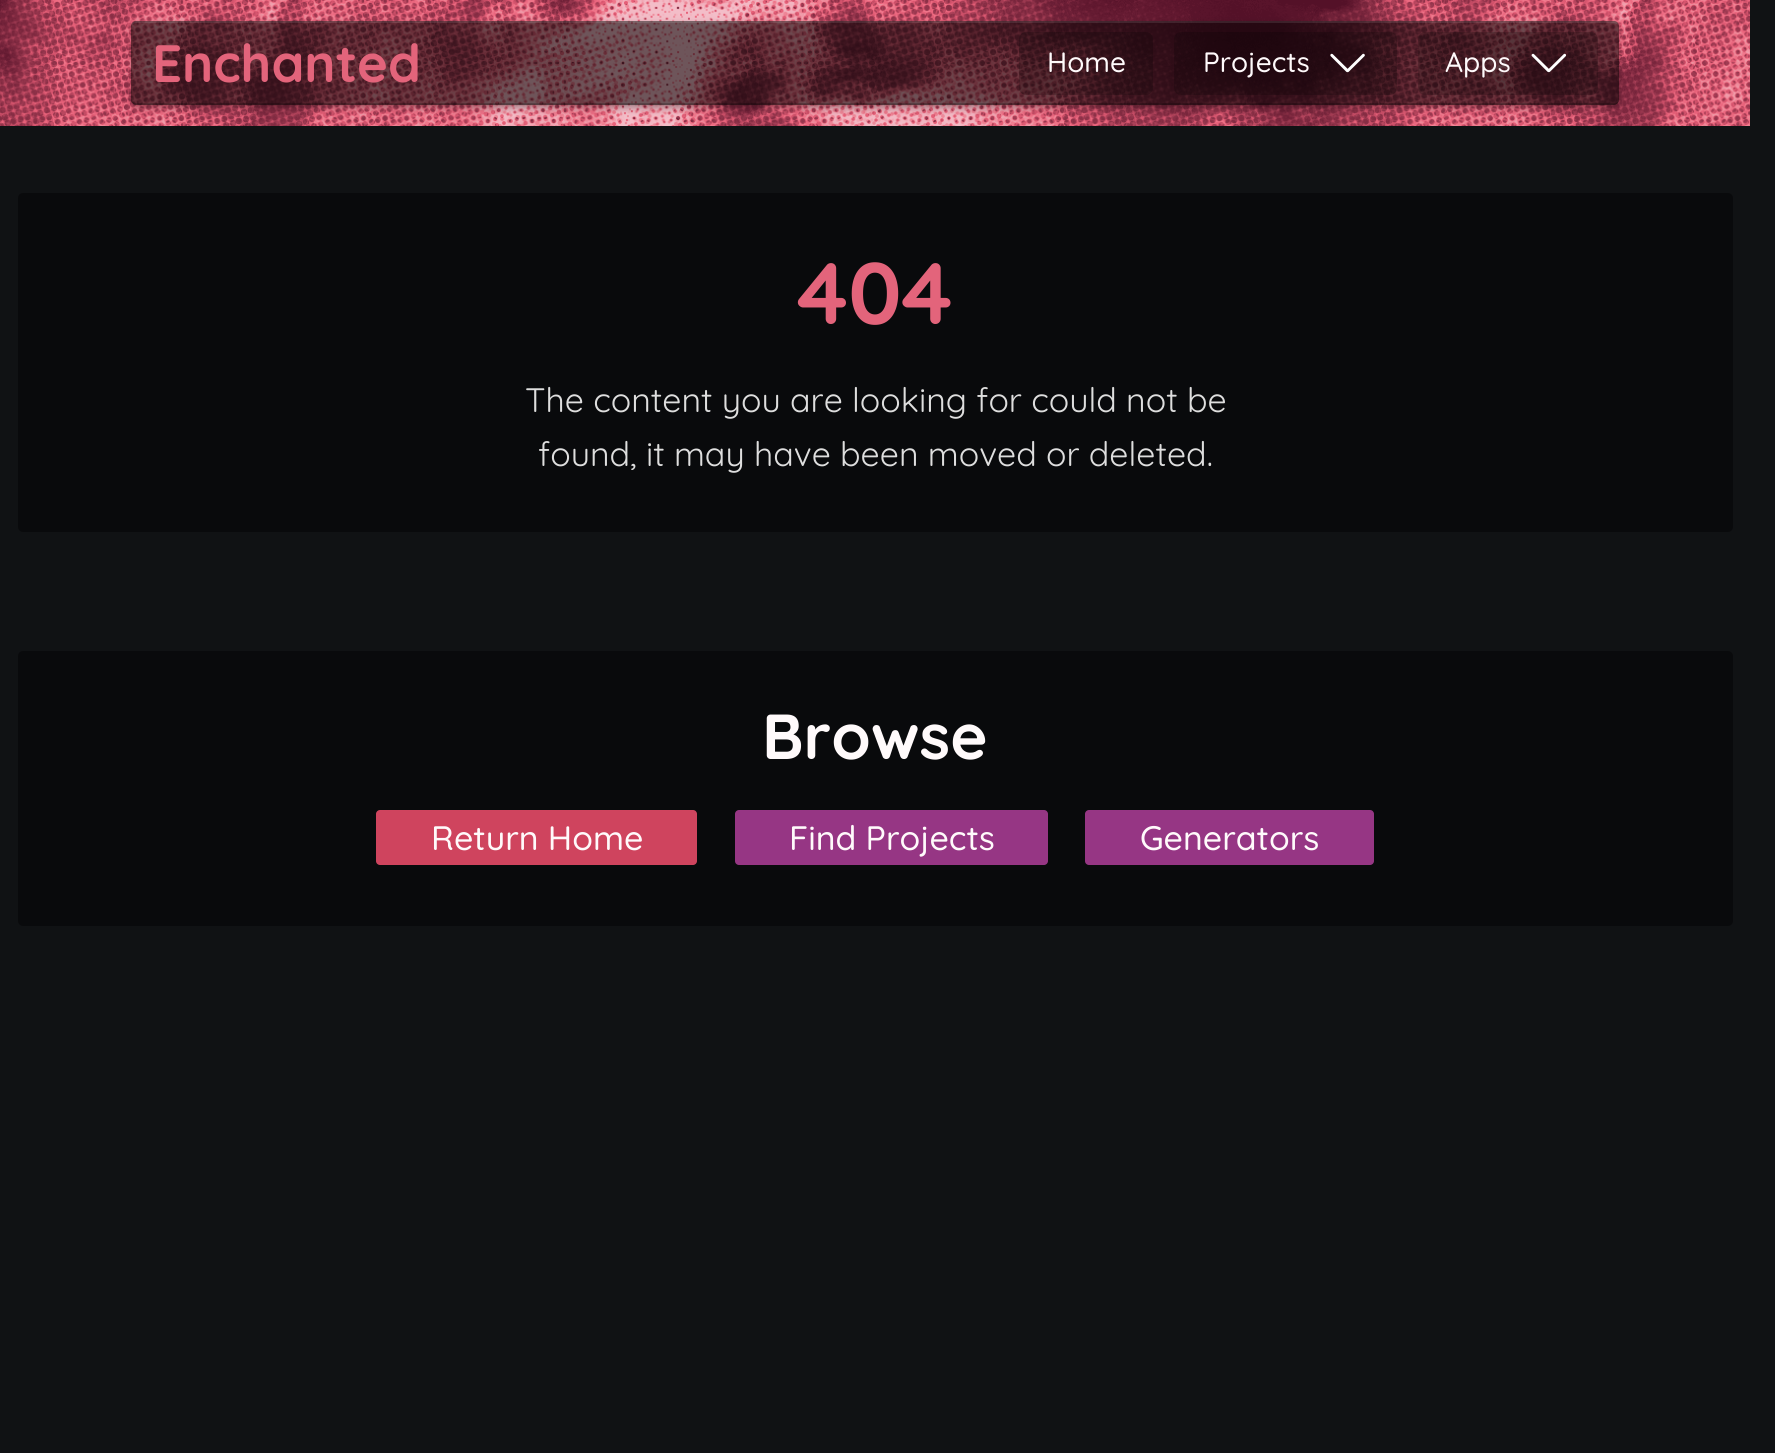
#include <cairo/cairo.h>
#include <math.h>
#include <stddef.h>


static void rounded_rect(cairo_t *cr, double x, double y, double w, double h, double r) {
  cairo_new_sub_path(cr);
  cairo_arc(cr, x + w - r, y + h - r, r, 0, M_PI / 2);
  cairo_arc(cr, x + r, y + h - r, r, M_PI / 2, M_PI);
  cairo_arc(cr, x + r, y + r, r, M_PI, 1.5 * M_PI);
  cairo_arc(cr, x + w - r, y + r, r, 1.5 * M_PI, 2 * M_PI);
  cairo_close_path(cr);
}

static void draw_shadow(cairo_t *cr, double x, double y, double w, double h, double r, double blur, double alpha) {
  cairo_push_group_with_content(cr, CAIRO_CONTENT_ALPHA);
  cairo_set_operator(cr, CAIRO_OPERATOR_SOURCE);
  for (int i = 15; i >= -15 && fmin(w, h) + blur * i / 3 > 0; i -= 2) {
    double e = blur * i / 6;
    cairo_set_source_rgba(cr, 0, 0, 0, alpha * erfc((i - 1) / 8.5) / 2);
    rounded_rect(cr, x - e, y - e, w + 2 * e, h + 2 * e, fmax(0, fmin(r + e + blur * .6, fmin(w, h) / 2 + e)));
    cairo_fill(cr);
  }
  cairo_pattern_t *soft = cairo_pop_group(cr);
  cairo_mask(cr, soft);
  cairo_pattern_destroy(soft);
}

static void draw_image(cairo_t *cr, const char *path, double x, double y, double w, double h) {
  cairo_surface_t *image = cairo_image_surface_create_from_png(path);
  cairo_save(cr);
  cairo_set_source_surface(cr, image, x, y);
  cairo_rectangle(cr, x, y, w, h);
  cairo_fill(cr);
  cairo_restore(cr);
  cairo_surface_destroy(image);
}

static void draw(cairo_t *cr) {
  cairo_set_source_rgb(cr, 16 / 255.0, 18 / 255.0, 20 / 255.0);
  cairo_paint(cr);
  draw_image(cr, "images/1.png", 0, 0, 1750, 126);
  cairo_save(cr);
  cairo_set_fill_rule(cr, CAIRO_FILL_RULE_EVEN_ODD);
  cairo_new_path(cr);
  cairo_move_to(cr, 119, 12);
  cairo_line_to(cr, 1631, 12);
  cairo_line_to(cr, 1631, 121);
  cairo_line_to(cr, 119, 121);
  cairo_close_path(cr);
  cairo_move_to(cr, 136, 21);
  cairo_line_to(cr, 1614, 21);
  cairo_curve_to(cr, 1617, 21, 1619, 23, 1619, 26);
  cairo_line_to(cr, 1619, 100);
  cairo_curve_to(cr, 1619, 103, 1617, 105, 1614, 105);
  cairo_line_to(cr, 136, 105);
  cairo_curve_to(cr, 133, 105, 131, 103, 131, 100);
  cairo_line_to(cr, 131, 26);
  cairo_curve_to(cr, 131, 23, 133, 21, 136, 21);
  cairo_close_path(cr);
  cairo_clip(cr);
  cairo_set_source_rgb(cr, 0, 0, 0);
  draw_shadow(cr, 135, 28, 1480, 77, 2, 5, 0.56);
  cairo_restore(cr);
  cairo_set_source_rgba(cr, 0, 0, 0, 0.55);
  rounded_rect(cr, 131, 21, 1488, 84, 5);
  cairo_fill(cr);
  cairo_set_source_rgba(cr, 0, 0, 0, 0.2);
  cairo_new_path(cr);
  cairo_move_to(cr, 131, 101);
  cairo_curve_to(cr, 132, 103, 134, 105, 136, 105);
  cairo_line_to(cr, 1614, 105);
  cairo_curve_to(cr, 1616, 105, 1618, 103, 1619, 101);
  cairo_curve_to(cr, 1617, 102, 1616, 103, 1614, 103);
  cairo_line_to(cr, 136, 103);
  cairo_curve_to(cr, 134, 103, 133, 102, 131, 101);
  cairo_close_path(cr);
  cairo_fill(cr);
  cairo_set_source_rgba(cr, 1, 1, 1, 0.1);
  cairo_new_path(cr);
  cairo_move_to(cr, 136, 23);
  cairo_line_to(cr, 1614, 23);
  cairo_curve_to(cr, 1616, 23, 1617, 24, 1619, 25);
  cairo_curve_to(cr, 1618, 23, 1616, 21, 1614, 21);
  cairo_line_to(cr, 136, 21);
  cairo_curve_to(cr, 134, 21, 132, 23, 131, 25);
  cairo_curve_to(cr, 133, 24, 134, 23, 136, 23);
  cairo_close_path(cr);
  cairo_fill(cr);
  cairo_set_source_rgba(cr, 0, 0, 0, 0.2);
  rounded_rect(cr, 1019, 32, 134, 63, 7);
  cairo_fill(cr);
  rounded_rect(cr, 1174, 32, 223, 63, 7);
  cairo_fill(cr);
  draw_image(cr, "images/2.png", 1330, 53, 35, 20);
  rounded_rect(cr, 1418, 32, 180, 63, 7);
  cairo_fill(cr);
  draw_image(cr, "images/3.png", 1531, 53, 36, 20);
  cairo_set_source_rgb(cr, 9 / 255.0, 10 / 255.0, 12 / 255.0);
  rounded_rect(cr, 18, 193, 1715, 339, 5);
  cairo_fill(cr);
  rounded_rect(cr, 18, 651, 1715, 275, 5);
  cairo_fill(cr);
  cairo_set_source_rgb(cr, 207 / 255.0, 68 / 255.0, 94 / 255.0);
  rounded_rect(cr, 376, 810, 321, 55, 4);
  cairo_fill(cr);
  cairo_set_source_rgb(cr, 150 / 255.0, 54 / 255.0, 132 / 255.0);
  rounded_rect(cr, 735, 810, 313, 55, 4);
  cairo_fill(cr);
  rounded_rect(cr, 1085, 810, 289, 55, 4);
  cairo_fill(cr);
  cairo_select_font_face(cr, "Quicksand", CAIRO_FONT_SLANT_NORMAL, CAIRO_FONT_WEIGHT_BOLD);
  cairo_set_font_size(cr, 52.5);
  cairo_set_source_rgb(cr, 227 / 255.0, 100 / 255.0, 123 / 255.0);
  cairo_move_to(cr, 152, 82);
  cairo_show_text(cr, "Enchanted");
  cairo_select_font_face(cr, "Quicksand Medium", CAIRO_FONT_SLANT_NORMAL, CAIRO_FONT_WEIGHT_NORMAL);
  cairo_set_font_size(cr, 28);
  cairo_set_source_rgb(cr, 1, 250 / 255.0, 251 / 255.0);
  cairo_move_to(cr, 1047, 72);
  cairo_show_text(cr, "Home");
  cairo_move_to(cr, 1203, 72);
  cairo_show_text(cr, "Projects");
  cairo_move_to(cr, 1445, 72);
  cairo_show_text(cr, "Apps");
  cairo_select_font_face(cr, "Quicksand", CAIRO_FONT_SLANT_NORMAL, CAIRO_FONT_WEIGHT_BOLD);
  cairo_set_font_size(cr, 87);
  cairo_set_source_rgb(cr, 227 / 255.0, 100 / 255.0, 123 / 255.0);
  cairo_move_to(cr, 797, 324);
  cairo_show_text(cr, "404");
  cairo_select_font_face(cr, "Quicksand", CAIRO_FONT_SLANT_NORMAL, CAIRO_FONT_WEIGHT_NORMAL);
  cairo_set_font_size(cr, 33.9);
  cairo_set_source_rgb(cr, 222 / 255.0, 222 / 255.0, 222 / 255.0);
  cairo_move_to(cr, 525, 412);
  cairo_show_text(cr, "The content you are looking for could not be");
  cairo_move_to(cr, 538, 466);
  cairo_show_text(cr, "found, it may have been moved or deleted.");
  cairo_select_font_face(cr, "Quicksand", CAIRO_FONT_SLANT_NORMAL, CAIRO_FONT_WEIGHT_BOLD);
  cairo_set_font_size(cr, 63.5);
  cairo_set_source_rgb(cr, 1, 250 / 255.0, 251 / 255.0);
  cairo_move_to(cr, 762, 759);
  cairo_show_text(cr, "Browse");
  cairo_select_font_face(cr, "Quicksand Medium", CAIRO_FONT_SLANT_NORMAL, CAIRO_FONT_WEIGHT_NORMAL);
  cairo_set_font_size(cr, 33.9);
  cairo_move_to(cr, 431, 850);
  cairo_show_text(cr, "Return Home");
  cairo_move_to(cr, 789, 850);
  cairo_show_text(cr, "Find Projects");
  cairo_move_to(cr, 1140, 850);
  cairo_show_text(cr, "Generators");
}

int main(void) {
  cairo_surface_t *surface = cairo_image_surface_create(CAIRO_FORMAT_RGB24, 1775, 1453);
  cairo_t *cr = cairo_create(surface);
  cairo_font_options_t *options = cairo_font_options_create();
  cairo_font_options_set_hint_metrics(options, CAIRO_HINT_METRICS_OFF);
  cairo_font_options_set_hint_style(options, CAIRO_HINT_STYLE_NONE);
  cairo_set_font_options(cr, options);
  cairo_set_miter_limit(cr, 4);
  draw(cr);
  cairo_surface_write_to_png(surface, "out.png");
  cairo_font_options_destroy(options);
  cairo_destroy(cr);
  cairo_surface_destroy(surface);
  return 0;
}
